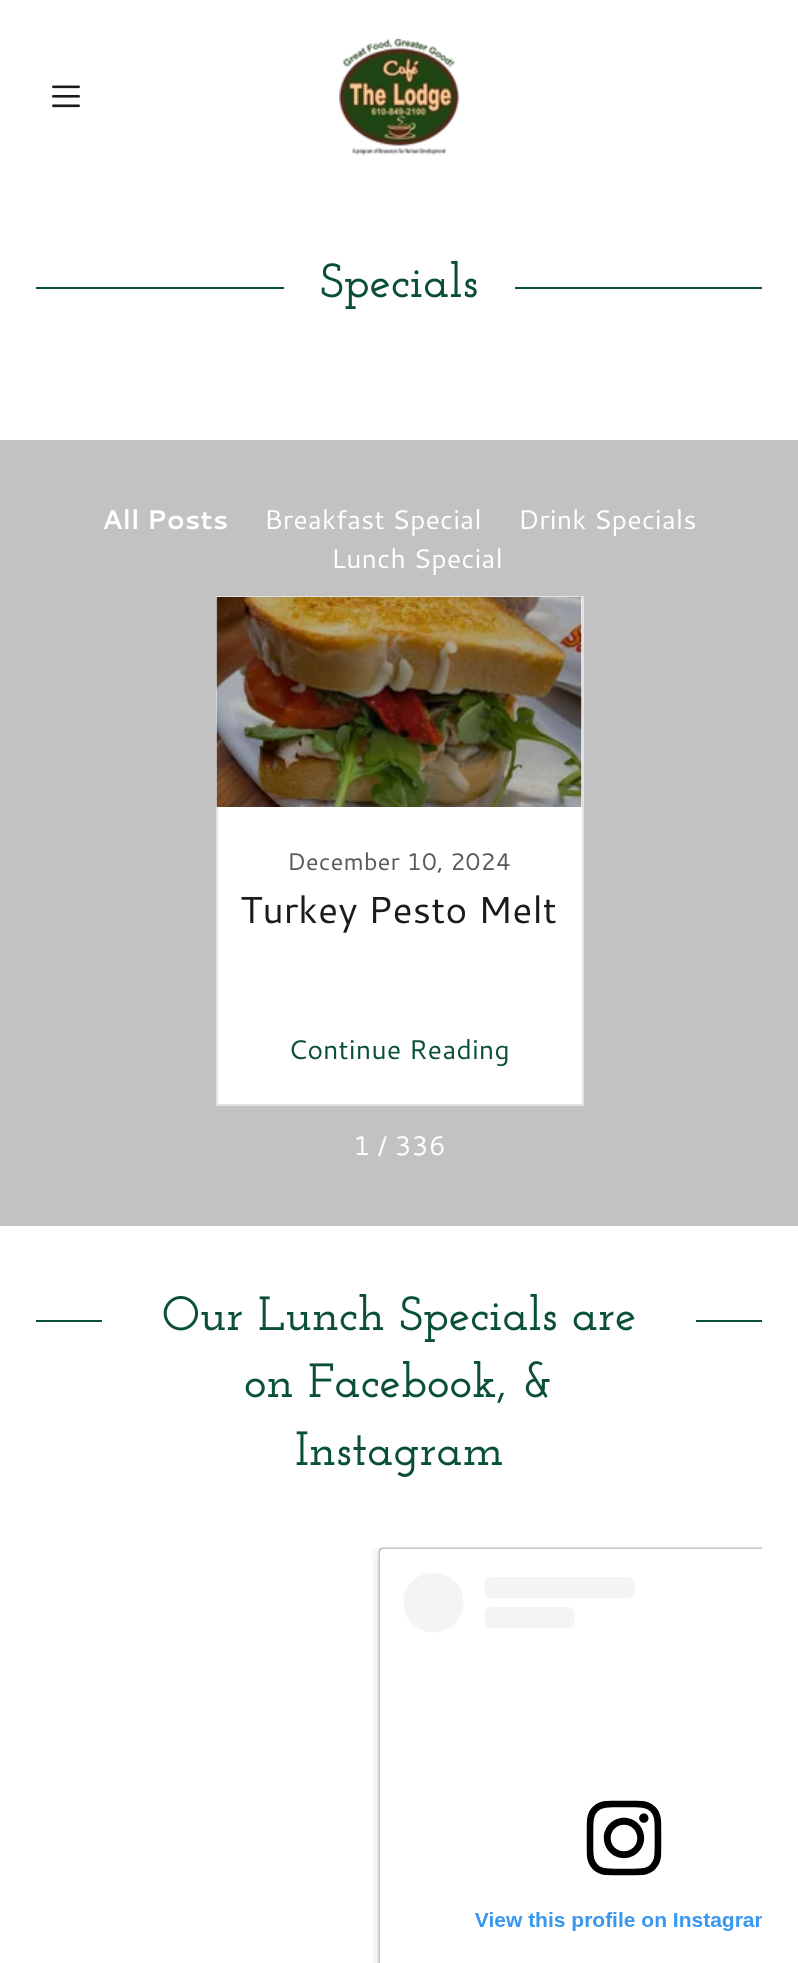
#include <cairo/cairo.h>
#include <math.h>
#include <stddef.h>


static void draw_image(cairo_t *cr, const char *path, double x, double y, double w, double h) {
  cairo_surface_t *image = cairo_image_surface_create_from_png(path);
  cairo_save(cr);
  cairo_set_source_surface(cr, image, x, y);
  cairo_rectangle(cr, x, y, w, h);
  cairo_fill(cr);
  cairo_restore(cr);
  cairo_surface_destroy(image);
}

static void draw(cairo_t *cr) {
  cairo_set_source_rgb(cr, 1, 1, 1);
  cairo_paint(cr);
  draw_image(cr, "images/1.png", 52, 85, 28, 23);
  draw_image(cr, "images/2.png", 339, 38, 120, 118);
  cairo_set_source_rgb(cr, 10 / 255.0, 79 / 255.0, 57 / 255.0);
  cairo_rectangle(cr, 36, 287, 248, 2);
  cairo_fill(cr);
  cairo_rectangle(cr, 515, 287, 247, 2);
  cairo_fill(cr);
  cairo_set_source_rgb(cr, 194 / 255.0, 194 / 255.0, 194 / 255.0);
  cairo_rectangle(cr, 0, 440, 798, 786);
  cairo_fill(cr);
  cairo_set_source_rgb(cr, 1, 1, 1);
  cairo_rectangle(cr, 217, 597, 366, 508);
  cairo_fill_preserve(cr);
  cairo_set_source_rgb(cr, 226 / 255.0, 226 / 255.0, 226 / 255.0);
  cairo_stroke(cr);
  draw_image(cr, "images/3.png", 216, 597, 366, 210);
  cairo_set_source_rgb(cr, 10 / 255.0, 79 / 255.0, 57 / 255.0);
  cairo_rectangle(cr, 36, 1320, 66, 2);
  cairo_fill(cr);
  cairo_rectangle(cr, 696, 1320, 66, 2);
  cairo_fill(cr);
  draw_image(cr, "images/4.png", 372, 1547, 390, 416);
  cairo_select_font_face(cr, "Josefin Slab Thin", CAIRO_FONT_SLANT_NORMAL, CAIRO_FONT_WEIGHT_NORMAL);
  cairo_set_font_size(cr, 48);
  cairo_move_to(cr, 320, 297);
  cairo_show_text(cr, "Specials");
  cairo_select_font_face(cr, "Cantarell", CAIRO_FONT_SLANT_NORMAL, CAIRO_FONT_WEIGHT_BOLD);
  cairo_set_font_size(cr, 27);
  cairo_set_source_rgb(cr, 1, 1, 1);
  cairo_move_to(cr, 102, 529);
  cairo_show_text(cr, "All Posts");
  cairo_select_font_face(cr, "Cantarell", CAIRO_FONT_SLANT_NORMAL, CAIRO_FONT_WEIGHT_NORMAL);
  cairo_move_to(cr, 264, 529);
  cairo_show_text(cr, "Breakfast Special");
  cairo_move_to(cr, 518, 529);
  cairo_show_text(cr, "Drink Specials");
  cairo_move_to(cr, 331, 568);
  cairo_show_text(cr, "Lunch Special");
  cairo_set_font_size(cr, 24);
  cairo_set_source_rgb(cr, 89 / 255.0, 89 / 255.0, 89 / 255.0);
  cairo_move_to(cr, 287, 870);
  cairo_show_text(cr, "December 10, 2024");
  cairo_set_font_size(cr, 37.5);
  cairo_set_source_rgb(cr, 27 / 255.0, 27 / 255.0, 27 / 255.0);
  cairo_move_to(cr, 240, 923);
  cairo_show_text(cr, "Turkey Pesto Melt");
  cairo_set_font_size(cr, 27);
  cairo_set_source_rgb(cr, 10 / 255.0, 79 / 255.0, 57 / 255.0);
  cairo_move_to(cr, 288, 1059);
  cairo_show_text(cr, "Continue Reading");
  cairo_set_source_rgb(cr, 1, 1, 1);
  cairo_move_to(cr, 353, 1155);
  cairo_show_text(cr, "1 / 336");
  cairo_select_font_face(cr, "Josefin Slab Thin", CAIRO_FONT_SLANT_NORMAL, CAIRO_FONT_WEIGHT_NORMAL);
  cairo_set_font_size(cr, 48);
  cairo_set_source_rgb(cr, 10 / 255.0, 79 / 255.0, 57 / 255.0);
  cairo_move_to(cr, 162, 1330);
  cairo_show_text(cr, "Our Lunch Specials are");
  cairo_move_to(cr, 244, 1397);
  cairo_show_text(cr, "on Facebook, &");
  cairo_move_to(cr, 295, 1465);
  cairo_show_text(cr, "Instagram");
}

int main(void) {
  cairo_surface_t *surface = cairo_image_surface_create(CAIRO_FORMAT_RGB24, 798, 1963);
  cairo_t *cr = cairo_create(surface);
  cairo_font_options_t *options = cairo_font_options_create();
  cairo_font_options_set_hint_metrics(options, CAIRO_HINT_METRICS_OFF);
  cairo_font_options_set_hint_style(options, CAIRO_HINT_STYLE_NONE);
  cairo_set_font_options(cr, options);
  cairo_set_miter_limit(cr, 4);
  draw(cr);
  cairo_surface_write_to_png(surface, "out.png");
  cairo_font_options_destroy(options);
  cairo_destroy(cr);
  cairo_surface_destroy(surface);
  return 0;
}
